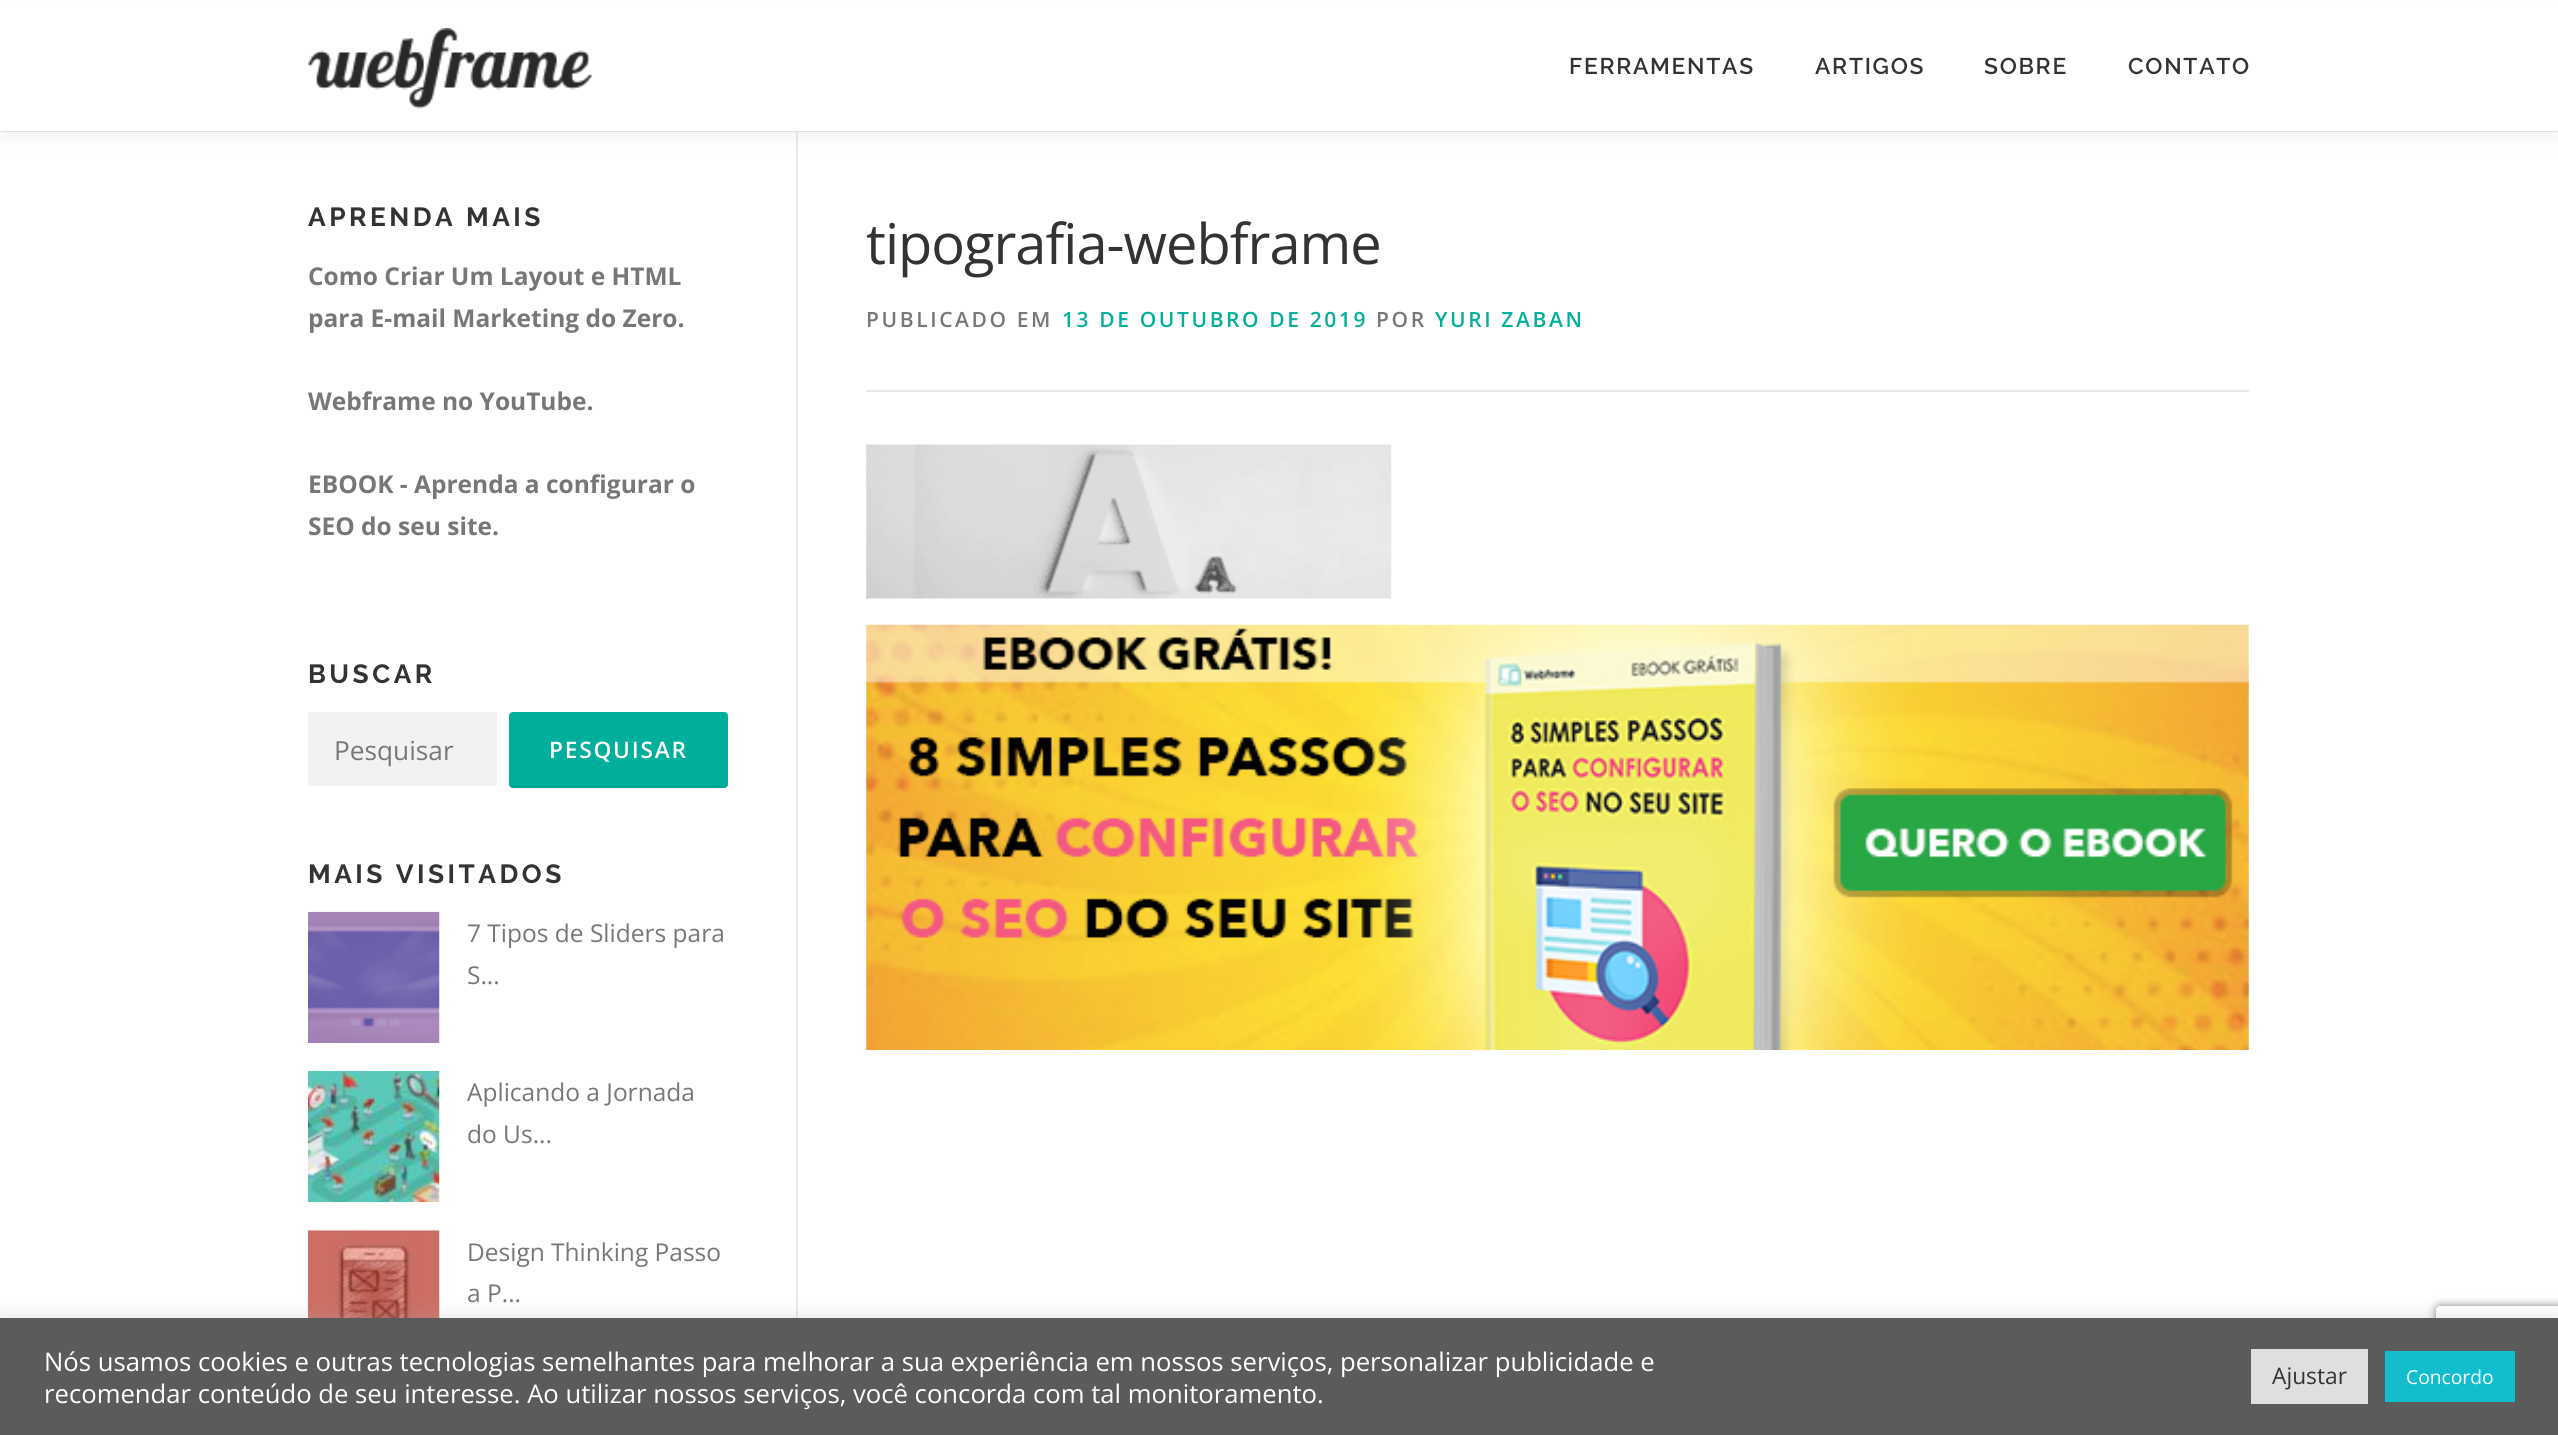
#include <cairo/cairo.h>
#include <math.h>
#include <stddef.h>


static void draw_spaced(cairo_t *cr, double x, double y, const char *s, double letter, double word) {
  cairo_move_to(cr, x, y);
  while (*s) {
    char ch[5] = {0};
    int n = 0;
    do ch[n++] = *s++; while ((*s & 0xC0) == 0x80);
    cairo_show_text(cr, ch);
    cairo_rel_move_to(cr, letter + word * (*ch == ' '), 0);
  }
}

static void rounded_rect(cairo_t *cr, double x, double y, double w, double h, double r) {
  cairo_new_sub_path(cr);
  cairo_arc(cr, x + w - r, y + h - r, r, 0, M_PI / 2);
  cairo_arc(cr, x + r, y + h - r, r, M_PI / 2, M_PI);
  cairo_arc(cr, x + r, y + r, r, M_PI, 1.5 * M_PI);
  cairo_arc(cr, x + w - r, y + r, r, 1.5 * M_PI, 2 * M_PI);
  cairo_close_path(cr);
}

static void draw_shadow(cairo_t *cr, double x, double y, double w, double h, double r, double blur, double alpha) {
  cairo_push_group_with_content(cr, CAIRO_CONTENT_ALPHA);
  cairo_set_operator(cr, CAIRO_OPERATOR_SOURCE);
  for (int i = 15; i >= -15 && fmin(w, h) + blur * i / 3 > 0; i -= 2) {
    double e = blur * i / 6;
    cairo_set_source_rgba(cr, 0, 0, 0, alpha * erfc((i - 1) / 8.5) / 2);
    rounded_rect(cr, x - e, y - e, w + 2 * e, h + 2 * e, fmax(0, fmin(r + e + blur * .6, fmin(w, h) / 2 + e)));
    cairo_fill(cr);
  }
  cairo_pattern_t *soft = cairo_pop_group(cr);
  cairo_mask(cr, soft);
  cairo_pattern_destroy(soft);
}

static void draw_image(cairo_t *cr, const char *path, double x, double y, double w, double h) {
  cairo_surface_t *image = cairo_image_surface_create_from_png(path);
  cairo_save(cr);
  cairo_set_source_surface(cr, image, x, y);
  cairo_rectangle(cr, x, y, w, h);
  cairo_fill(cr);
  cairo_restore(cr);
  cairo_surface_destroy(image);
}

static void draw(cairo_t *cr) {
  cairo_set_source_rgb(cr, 1, 1, 1);
  cairo_paint(cr);
  cairo_set_source_rgb(cr, 233 / 255.0, 233 / 255.0, 233 / 255.0);
  cairo_rectangle(cr, 0, 131, 2558, 1);
  cairo_fill(cr);
  cairo_rectangle(cr, 796, 131, 2, 1187);
  cairo_fill(cr);
  cairo_set_source_rgb(cr, 50 / 255.0, 50 / 255.0, 50 / 255.0);
  draw_shadow(cr, 0, 9, 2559, 131, 0, 9, 0.06);
  cairo_set_source_rgb(cr, 1, 1, 1);
  cairo_rectangle(cr, 0, 2, 2558, 129);
  cairo_fill(cr);
  draw_image(cr, "images/1.png", 308, 28, 284, 81);
  cairo_set_source_rgb(cr, 242 / 255.0, 242 / 255.0, 242 / 255.0);
  cairo_rectangle(cr, 308, 712, 189, 74);
  cairo_fill(cr);
  cairo_set_source_rgb(cr, 2 / 255.0, 175 / 255.0, 155 / 255.0);
  rounded_rect(cr, 509, 712, 219, 76, 4);
  cairo_fill(cr);
  cairo_set_source_rgba(cr, 0, 0, 0, 0.1);
  cairo_new_path(cr);
  cairo_move_to(cr, 509, 782);
  cairo_curve_to(cr, 509, 785, 509, 787, 512, 788);
  cairo_line_to(cr, 725, 788);
  cairo_curve_to(cr, 728, 787, 728, 785, 728, 782);
  cairo_curve_to(cr, 728, 784, 726, 786, 724, 786);
  cairo_line_to(cr, 513, 786);
  cairo_curve_to(cr, 511, 786, 509, 784, 509, 782);
  cairo_close_path(cr);
  cairo_fill(cr);
  draw_image(cr, "images/2.png", 308, 911, 132, 132);
  draw_image(cr, "images/3.png", 308, 1071, 132, 132);
  draw_image(cr, "images/4.png", 308, 1230, 132, 88);
  cairo_set_source_rgb(cr, 233 / 255.0, 233 / 255.0, 233 / 255.0);
  cairo_rectangle(cr, 866, 390, 1383, 2);
  cairo_fill(cr);
  draw_image(cr, "images/5.png", 866, 444, 526, 155);
  draw_image(cr, "images/6.png", 866, 624, 1383, 426);
  cairo_save(cr);
  cairo_set_fill_rule(cr, CAIRO_FILL_RULE_EVEN_ODD);
  cairo_new_path(cr);
  cairo_move_to(cr, 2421, 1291);
  cairo_line_to(cr, 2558, 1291);
  cairo_line_to(cr, 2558, 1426);
  cairo_line_to(cr, 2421, 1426);
  cairo_close_path(cr);
  cairo_move_to(cr, 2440, 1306);
  cairo_line_to(cr, 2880, 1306);
  cairo_curve_to(cr, 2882, 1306, 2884, 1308, 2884, 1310);
  cairo_line_to(cr, 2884, 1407);
  cairo_curve_to(cr, 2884, 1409, 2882, 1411, 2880, 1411);
  cairo_line_to(cr, 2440, 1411);
  cairo_curve_to(cr, 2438, 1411, 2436, 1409, 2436, 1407);
  cairo_line_to(cr, 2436, 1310);
  cairo_curve_to(cr, 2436, 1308, 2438, 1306, 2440, 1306);
  cairo_close_path(cr);
  cairo_clip(cr);
  cairo_set_source_rgb(cr, 128 / 255.0, 128 / 255.0, 128 / 255.0);
  draw_shadow(cr, 2436, 1306, 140, 105, 4, 4.5, 1);
  cairo_restore(cr);
  cairo_set_source_rgb(cr, 172 / 255.0, 171 / 255.0, 171 / 255.0);
  draw_shadow(cr, 0, 1316, 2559, 117, 0, 9, 0.3);
  cairo_set_source_rgb(cr, 91 / 255.0, 91 / 255.0, 91 / 255.0);
  cairo_rectangle(cr, 0, 1318, 2558, 117);
  cairo_fill(cr);
  cairo_set_source_rgb(cr, 222 / 255.0, 223 / 255.0, 224 / 255.0);
  cairo_rectangle(cr, 2251, 1349, 117, 55);
  cairo_fill(cr);
  cairo_set_source_rgb(cr, 18 / 255.0, 190 / 255.0, 206 / 255.0);
  cairo_rectangle(cr, 2385, 1351, 130, 51);
  cairo_fill(cr);
  cairo_select_font_face(cr, "Raleway SemiBold", CAIRO_FONT_SLANT_NORMAL, CAIRO_FONT_WEIGHT_NORMAL);
  cairo_set_font_size(cr, 22.75);
  cairo_set_source_rgb(cr, 51 / 255.0, 51 / 255.0, 51 / 255.0);
  draw_spaced(cr, 1569, 74, "FERRAMENTAS", 1.75, 0);
  draw_spaced(cr, 1815, 74, "ARTIGOS", 1.75, 0);
  draw_spaced(cr, 1984, 74, "SOBRE", 1.75, 0);
  draw_spaced(cr, 2128, 74, "CONTATO", 1.75, 0);
  cairo_select_font_face(cr, "Raleway", CAIRO_FONT_SLANT_NORMAL, CAIRO_FONT_WEIGHT_BOLD);
  cairo_set_font_size(cr, 26.25);
  draw_spaced(cr, 308, 226, "APRENDA MAIS", 3.5, 0);
  cairo_select_font_face(cr, "Open Sans", CAIRO_FONT_SLANT_NORMAL, CAIRO_FONT_WEIGHT_BOLD);
  cairo_set_font_size(cr, 24.5);
  cairo_set_source_rgb(cr, 119 / 255.0, 119 / 255.0, 119 / 255.0);
  cairo_move_to(cr, 308, 285);
  cairo_show_text(cr, "Como Criar Um Layout e HTML");
  cairo_move_to(cr, 308, 327);
  cairo_show_text(cr, "para E-mail Marketing do Zero.");
  cairo_move_to(cr, 308, 410);
  cairo_show_text(cr, "Webframe no YouTube.");
  cairo_move_to(cr, 308, 493);
  cairo_show_text(cr, "EBOOK - Aprenda a configurar o");
  cairo_move_to(cr, 308, 535);
  cairo_show_text(cr, "SEO do seu site.");
  cairo_select_font_face(cr, "Raleway", CAIRO_FONT_SLANT_NORMAL, CAIRO_FONT_WEIGHT_BOLD);
  cairo_set_font_size(cr, 26.25);
  cairo_set_source_rgb(cr, 51 / 255.0, 51 / 255.0, 51 / 255.0);
  draw_spaced(cr, 308, 683, "BUSCAR", 3.5, 0);
  cairo_select_font_face(cr, "Open Sans", CAIRO_FONT_SLANT_NORMAL, CAIRO_FONT_WEIGHT_NORMAL);
  cairo_set_source_rgb(cr, 119 / 255.0, 119 / 255.0, 119 / 255.0);
  cairo_move_to(cr, 334, 760);
  cairo_show_text(cr, "Pesquisar");
  cairo_select_font_face(cr, "Open Sans SemiBold", CAIRO_FONT_SLANT_NORMAL, CAIRO_FONT_WEIGHT_NORMAL);
  cairo_set_font_size(cr, 22.75);
  cairo_set_source_rgb(cr, 1, 1, 1);
  draw_spaced(cr, 549, 758, "PESQUISAR", 1.75, 0);
  cairo_select_font_face(cr, "Raleway", CAIRO_FONT_SLANT_NORMAL, CAIRO_FONT_WEIGHT_BOLD);
  cairo_set_font_size(cr, 26.25);
  cairo_set_source_rgb(cr, 51 / 255.0, 51 / 255.0, 51 / 255.0);
  draw_spaced(cr, 308, 883, "MAIS VISITADOS", 3.5, 0);
  cairo_select_font_face(cr, "Open Sans", CAIRO_FONT_SLANT_NORMAL, CAIRO_FONT_WEIGHT_NORMAL);
  cairo_set_font_size(cr, 24.5);
  cairo_set_source_rgb(cr, 119 / 255.0, 119 / 255.0, 119 / 255.0);
  cairo_move_to(cr, 467, 942);
  cairo_show_text(cr, "7 Tipos de Sliders para");
  cairo_move_to(cr, 467, 984);
  cairo_show_text(cr, "S...");
  cairo_move_to(cr, 467, 1101);
  cairo_show_text(cr, "Aplicando a Jornada");
  cairo_move_to(cr, 467, 1143);
  cairo_show_text(cr, "do Us...");
  cairo_move_to(cr, 467, 1261);
  cairo_show_text(cr, "Design Thinking Passo");
  cairo_move_to(cr, 467, 1302);
  cairo_show_text(cr, "a P...");
  cairo_set_font_size(cr, 56);
  cairo_set_source_rgb(cr, 51 / 255.0, 51 / 255.0, 51 / 255.0);
  draw_spaced(cr, 866, 264, "tipografia-webframe", -1, 0);
  cairo_select_font_face(cr, "Open Sans SemiBold", CAIRO_FONT_SLANT_NORMAL, CAIRO_FONT_WEIGHT_NORMAL);
  cairo_set_font_size(cr, 21);
  cairo_set_source_rgb(cr, 119 / 255.0, 119 / 255.0, 119 / 255.0);
  draw_spaced(cr, 866, 327, "PUBLICADO EM", 2.6, 0);
  cairo_set_source_rgb(cr, 2 / 255.0, 175 / 255.0, 155 / 255.0);
  draw_spaced(cr, 1062, 327, "13 DE OUTUBRO DE 2019", 2.6, 0);
  cairo_set_source_rgb(cr, 119 / 255.0, 119 / 255.0, 119 / 255.0);
  draw_spaced(cr, 1376, 327, "POR", 2.6, 0);
  cairo_set_source_rgb(cr, 2 / 255.0, 175 / 255.0, 155 / 255.0);
  draw_spaced(cr, 1435, 327, "YURI ZABAN", 2.6, 0);
  cairo_select_font_face(cr, "Open Sans", CAIRO_FONT_SLANT_NORMAL, CAIRO_FONT_WEIGHT_NORMAL);
  cairo_set_font_size(cr, 25.67);
  cairo_set_source_rgb(cr, 1, 1, 1);
  cairo_move_to(cr, 44, 1371);
  cairo_show_text(cr, "Nós usamos cookies e outras tecnologias semelhantes para melhorar a sua experiência em nossos serviços, personalizar publicidade e");
  cairo_move_to(cr, 44, 1403);
  cairo_show_text(cr, "recomendar conteúdo de seu interesse. Ao utilizar nossos serviços, você concorda com tal monitoramento.");
  cairo_set_font_size(cr, 22.75);
  cairo_set_source_rgb(cr, 51 / 255.0, 51 / 255.0, 51 / 255.0);
  cairo_move_to(cr, 2272, 1384);
  cairo_show_text(cr, "Ajustar");
  cairo_set_font_size(cr, 19.25);
  cairo_set_source_rgb(cr, 1, 1, 1);
  cairo_move_to(cr, 2406, 1384);
  cairo_show_text(cr, "Concordo");
}

int main(void) {
  cairo_surface_t *surface = cairo_image_surface_create(CAIRO_FORMAT_RGB24, 2558, 1435);
  cairo_t *cr = cairo_create(surface);
  cairo_font_options_t *options = cairo_font_options_create();
  cairo_font_options_set_hint_metrics(options, CAIRO_HINT_METRICS_OFF);
  cairo_font_options_set_hint_style(options, CAIRO_HINT_STYLE_NONE);
  cairo_set_font_options(cr, options);
  cairo_set_miter_limit(cr, 4);
  draw(cr);
  cairo_surface_write_to_png(surface, "out.png");
  cairo_font_options_destroy(options);
  cairo_destroy(cr);
  cairo_surface_destroy(surface);
  return 0;
}
